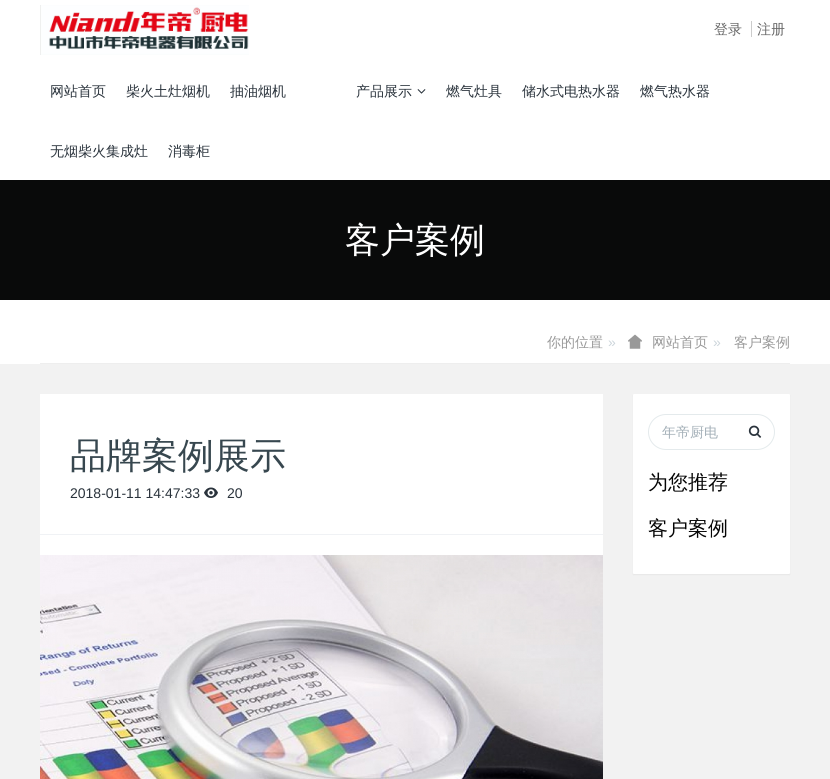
#include <cairo/cairo.h>
#include <math.h>
#include <stddef.h>


static void rounded_rect(cairo_t *cr, double x, double y, double w, double h, double r) {
  cairo_new_sub_path(cr);
  cairo_arc(cr, x + w - r, y + h - r, r, 0, M_PI / 2);
  cairo_arc(cr, x + r, y + h - r, r, M_PI / 2, M_PI);
  cairo_arc(cr, x + r, y + r, r, M_PI, 1.5 * M_PI);
  cairo_arc(cr, x + w - r, y + r, r, 1.5 * M_PI, 2 * M_PI);
  cairo_close_path(cr);
}

static void draw_shadow(cairo_t *cr, double x, double y, double w, double h, double r, double blur, double alpha) {
  cairo_push_group_with_content(cr, CAIRO_CONTENT_ALPHA);
  cairo_set_operator(cr, CAIRO_OPERATOR_SOURCE);
  for (int i = 15; i >= -15 && fmin(w, h) + blur * i / 3 > 0; i -= 2) {
    double e = blur * i / 6;
    cairo_set_source_rgba(cr, 0, 0, 0, alpha * erfc((i - 1) / 8.5) / 2);
    rounded_rect(cr, x - e, y - e, w + 2 * e, h + 2 * e, fmax(0, fmin(r + e + blur * .6, fmin(w, h) / 2 + e)));
    cairo_fill(cr);
  }
  cairo_pattern_t *soft = cairo_pop_group(cr);
  cairo_mask(cr, soft);
  cairo_pattern_destroy(soft);
}

static void draw_image(cairo_t *cr, const char *path, double x, double y, double w, double h) {
  cairo_surface_t *image = cairo_image_surface_create_from_png(path);
  cairo_save(cr);
  cairo_set_source_surface(cr, image, x, y);
  cairo_rectangle(cr, x, y, w, h);
  cairo_fill(cr);
  cairo_restore(cr);
  cairo_surface_destroy(image);
}

static void draw(cairo_t *cr) {
  cairo_set_source_rgb(cr, 1, 1, 1);
  cairo_paint(cr);
  draw_image(cr, "images/1.png", 40, 5, 209, 50);
  cairo_set_source_rgb(cr, 204 / 255.0, 204 / 255.0, 204 / 255.0);
  cairo_rectangle(cr, 751, 21, 1, 16);
  cairo_fill(cr);
  draw_image(cr, "images/2.png", 417, 89, 9, 5);
  cairo_set_source_rgb(cr, 9 / 255.0, 10 / 255.0, 10 / 255.0);
  cairo_rectangle(cr, 0, 180, 830, 120);
  cairo_fill(cr);
  cairo_set_source_rgb(cr, 238 / 255.0, 238 / 255.0, 238 / 255.0);
  cairo_rectangle(cr, 40, 363, 750, 1);
  cairo_fill(cr);
  draw_image(cr, "images/3.png", 628, 334, 14, 15);
  cairo_set_source_rgb(cr, 242 / 255.0, 242 / 255.0, 242 / 255.0);
  cairo_rectangle(cr, 0, 364, 830, 415);
  cairo_fill(cr);
  cairo_set_source_rgb(cr, 1, 1, 1);
  cairo_rectangle(cr, 40, 394, 563, 161);
  cairo_fill(cr);
  cairo_set_source_rgb(cr, 240 / 255.0, 242 / 255.0, 245 / 255.0);
  cairo_rectangle(cr, 40, 534, 563, 1);
  cairo_fill(cr);
  draw_image(cr, "images/4.png", 204, 487, 14, 11);
  draw_image(cr, "images/5.png", 40, 555, 563, 224);
  cairo_set_source_rgb(cr, 0, 0, 0);
  draw_shadow(cr, 633, 395, 157, 180, 1, 0.5, 0.05);
  cairo_set_source_rgb(cr, 1, 1, 1);
  rounded_rect(cr, 633, 394, 157, 180, 1);
  cairo_fill(cr);
  rounded_rect(cr, 648.5, 414.5, 126, 35, 17.5);
  cairo_set_source_rgb(cr, 228 / 255.0, 234 / 255.0, 236 / 255.0);
  cairo_set_line_width(cr, 1);
  cairo_stroke(cr);
  draw_image(cr, "images/6.png", 748, 425, 14, 13);
  cairo_select_font_face(cr, "WenQuanYi Zen Hei Medium", CAIRO_FONT_SLANT_NORMAL, CAIRO_FONT_WEIGHT_NORMAL);
  cairo_set_font_size(cr, 14);
  cairo_set_source_rgb(cr, 102 / 255.0, 102 / 255.0, 102 / 255.0);
  cairo_move_to(cr, 714, 34);
  cairo_show_text(cr, "登录");
  cairo_move_to(cr, 757, 34);
  cairo_show_text(cr, "注册");
  cairo_set_source_rgb(cr, 42 / 255.0, 51 / 255.0, 60 / 255.0);
  cairo_move_to(cr, 50, 96);
  cairo_show_text(cr, "网站首页");
  cairo_move_to(cr, 126, 96);
  cairo_show_text(cr, "柴火土灶烟机");
  cairo_move_to(cr, 230, 96);
  cairo_show_text(cr, "抽油烟机");
  cairo_move_to(cr, 356, 96);
  cairo_show_text(cr, "产品展示");
  cairo_move_to(cr, 446, 96);
  cairo_show_text(cr, "燃气灶具");
  cairo_move_to(cr, 522, 96);
  cairo_show_text(cr, "储水式电热水器");
  cairo_move_to(cr, 640, 96);
  cairo_show_text(cr, "燃气热水器");
  cairo_move_to(cr, 50, 156);
  cairo_show_text(cr, "无烟柴火集成灶");
  cairo_move_to(cr, 168, 156);
  cairo_show_text(cr, "消毒柜");
  cairo_set_font_size(cr, 35);
  cairo_set_source_rgb(cr, 1, 1, 1);
  cairo_move_to(cr, 345, 252);
  cairo_show_text(cr, "客户案例");
  cairo_set_font_size(cr, 14);
  cairo_set_source_rgb(cr, 153 / 255.0, 153 / 255.0, 153 / 255.0);
  cairo_move_to(cr, 547, 347);
  cairo_show_text(cr, "你的位置");
  cairo_select_font_face(cr, "Liberation Sans", CAIRO_FONT_SLANT_NORMAL, CAIRO_FONT_WEIGHT_NORMAL);
  cairo_set_source_rgb(cr, 204 / 255.0, 213 / 255.0, 219 / 255.0);
  cairo_move_to(cr, 608, 347);
  cairo_show_text(cr, "»");
  cairo_select_font_face(cr, "WenQuanYi Zen Hei Medium", CAIRO_FONT_SLANT_NORMAL, CAIRO_FONT_WEIGHT_NORMAL);
  cairo_set_source_rgb(cr, 153 / 255.0, 153 / 255.0, 153 / 255.0);
  cairo_move_to(cr, 652, 347);
  cairo_show_text(cr, "网站首页");
  cairo_select_font_face(cr, "Liberation Sans", CAIRO_FONT_SLANT_NORMAL, CAIRO_FONT_WEIGHT_NORMAL);
  cairo_set_source_rgb(cr, 204 / 255.0, 213 / 255.0, 219 / 255.0);
  cairo_move_to(cr, 713, 347);
  cairo_show_text(cr, "»");
  cairo_select_font_face(cr, "WenQuanYi Zen Hei Medium", CAIRO_FONT_SLANT_NORMAL, CAIRO_FONT_WEIGHT_NORMAL);
  cairo_set_source_rgb(cr, 153 / 255.0, 153 / 255.0, 153 / 255.0);
  cairo_move_to(cr, 734, 347);
  cairo_show_text(cr, "客户案例");
  cairo_set_font_size(cr, 36);
  cairo_set_source_rgb(cr, 55 / 255.0, 71 / 255.0, 79 / 255.0);
  cairo_move_to(cr, 70, 468);
  cairo_show_text(cr, "品牌案例展示");
  cairo_select_font_face(cr, "Liberation Sans", CAIRO_FONT_SLANT_NORMAL, CAIRO_FONT_WEIGHT_NORMAL);
  cairo_set_font_size(cr, 14);
  cairo_set_source_rgb(cr, 42 / 255.0, 51 / 255.0, 60 / 255.0);
  cairo_move_to(cr, 70, 498);
  cairo_show_text(cr, "2018-01-11 14:47:33");
  cairo_move_to(cr, 227, 498);
  cairo_show_text(cr, "20");
  cairo_select_font_face(cr, "WenQuanYi Zen Hei Medium", CAIRO_FONT_SLANT_NORMAL, CAIRO_FONT_WEIGHT_NORMAL);
  cairo_set_source_rgb(cr, 163 / 255.0, 175 / 255.0, 183 / 255.0);
  cairo_move_to(cr, 662, 437);
  cairo_show_text(cr, "年帝厨电");
  cairo_set_font_size(cr, 20);
  cairo_set_source_rgb(cr, 5 / 255.0, 5 / 255.0, 5 / 255.0);
  cairo_move_to(cr, 648, 489);
  cairo_show_text(cr, "为您推荐");
  cairo_move_to(cr, 648, 535);
  cairo_show_text(cr, "客户案例");
}

int main(void) {
  cairo_surface_t *surface = cairo_image_surface_create(CAIRO_FORMAT_RGB24, 830, 779);
  cairo_t *cr = cairo_create(surface);
  cairo_font_options_t *options = cairo_font_options_create();
  cairo_font_options_set_hint_metrics(options, CAIRO_HINT_METRICS_OFF);
  cairo_font_options_set_hint_style(options, CAIRO_HINT_STYLE_NONE);
  cairo_set_font_options(cr, options);
  cairo_set_miter_limit(cr, 4);
  draw(cr);
  cairo_surface_write_to_png(surface, "out.png");
  cairo_font_options_destroy(options);
  cairo_destroy(cr);
  cairo_surface_destroy(surface);
  return 0;
}
